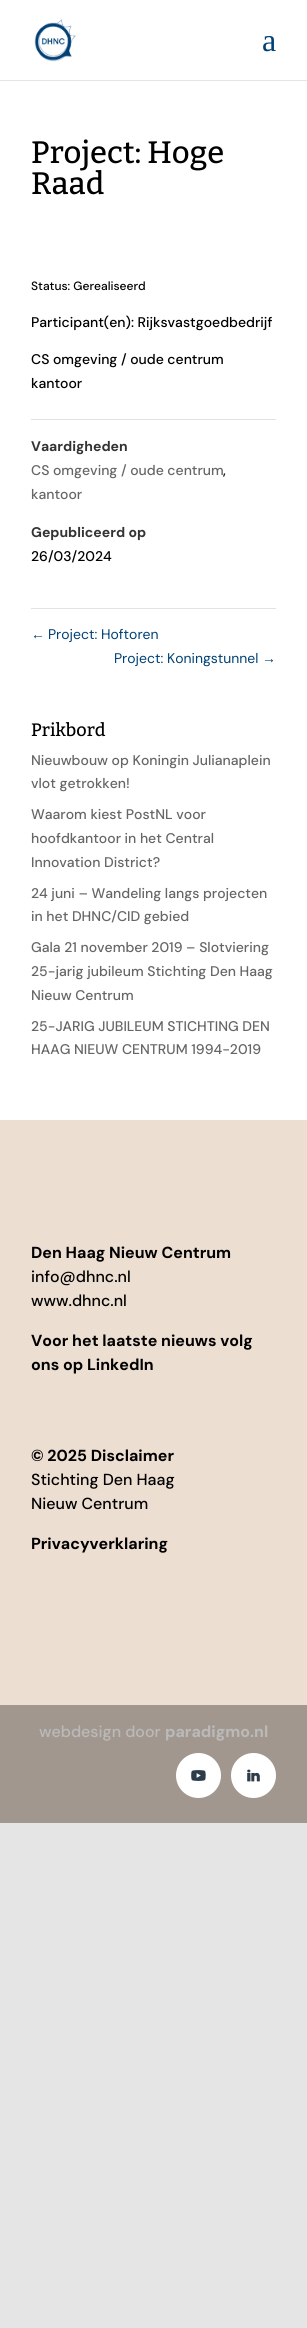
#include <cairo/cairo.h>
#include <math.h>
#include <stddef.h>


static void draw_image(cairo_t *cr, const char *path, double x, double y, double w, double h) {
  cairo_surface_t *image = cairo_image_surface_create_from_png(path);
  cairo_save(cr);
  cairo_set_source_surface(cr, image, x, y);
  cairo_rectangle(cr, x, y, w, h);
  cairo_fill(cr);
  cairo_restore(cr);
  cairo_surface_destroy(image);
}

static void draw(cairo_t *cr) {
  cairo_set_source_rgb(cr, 229 / 255.0, 229 / 255.0, 229 / 255.0);
  cairo_paint(cr);
  cairo_set_source_rgb(cr, 1, 1, 1);
  cairo_rectangle(cr, 0, 0, 307, 80);
  cairo_fill(cr);
  draw_image(cr, "images/1.png", 34, 19, 42, 43);
  cairo_rectangle(cr, 0, 81, 307, 1039);
  cairo_fill(cr);
  cairo_set_source_rgb(cr, 226 / 255.0, 226 / 255.0, 226 / 255.0);
  cairo_rectangle(cr, 31, 419, 245, 1);
  cairo_fill(cr);
  cairo_rectangle(cr, 31, 608, 245, 1);
  cairo_fill(cr);
  cairo_set_source_rgb(cr, 237 / 255.0, 222 / 255.0, 210 / 255.0);
  cairo_rectangle(cr, 0, 1120, 307, 585);
  cairo_fill(cr);
  cairo_set_source_rgb(cr, 161 / 255.0, 151 / 255.0, 143 / 255.0);
  cairo_rectangle(cr, 0, 1705, 307, 118);
  cairo_fill(cr);
  cairo_set_source_rgb(cr, 1, 1, 1);
  cairo_arc(cr, 198.5, 1775.5, 22.5, 0, 2 * M_PI);
  cairo_fill(cr);
  draw_image(cr, "images/2.png", 191, 1770, 15, 11);
  cairo_arc(cr, 253.5, 1775.5, 22.5, 0, 2 * M_PI);
  cairo_fill(cr);
  draw_image(cr, "images/3.png", 247, 1769, 13, 13);
  cairo_select_font_face(cr, "Liberation Serif", CAIRO_FONT_SLANT_NORMAL, CAIRO_FONT_WEIGHT_NORMAL);
  cairo_set_font_size(cr, 32);
  cairo_set_source_rgb(cr, 0, 64 / 255.0, 116 / 255.0);
  cairo_move_to(cr, 262, 51);
  cairo_show_text(cr, "a");
  cairo_select_font_face(cr, "Bitter Thin", CAIRO_FONT_SLANT_NORMAL, CAIRO_FONT_WEIGHT_NORMAL);
  cairo_set_font_size(cr, 31);
  cairo_set_source_rgb(cr, 0, 0, 0);
  cairo_move_to(cr, 31, 163);
  cairo_show_text(cr, "Project: Hoge");
  cairo_move_to(cr, 31, 194);
  cairo_show_text(cr, "Raad");
  cairo_select_font_face(cr, "DM Sans Medium", CAIRO_FONT_SLANT_NORMAL, CAIRO_FONT_WEIGHT_NORMAL);
  cairo_set_font_size(cr, 12);
  cairo_move_to(cr, 31, 290);
  cairo_show_text(cr, "Status: Gerealiseerd");
  cairo_set_font_size(cr, 14);
  cairo_move_to(cr, 31, 327);
  cairo_show_text(cr, "Participant(en): Rijksvastgoedbedrijf");
  cairo_move_to(cr, 31, 364);
  cairo_show_text(cr, "CS omgeving / oude centrum");
  cairo_move_to(cr, 31, 388);
  cairo_show_text(cr, "kantoor");
  cairo_select_font_face(cr, "DM Sans", CAIRO_FONT_SLANT_NORMAL, CAIRO_FONT_WEIGHT_BOLD);
  cairo_set_source_rgb(cr, 51 / 255.0, 51 / 255.0, 51 / 255.0);
  cairo_move_to(cr, 31, 451);
  cairo_show_text(cr, "Vaardigheden");
  cairo_select_font_face(cr, "DM Sans Medium", CAIRO_FONT_SLANT_NORMAL, CAIRO_FONT_WEIGHT_NORMAL);
  cairo_set_source_rgb(cr, 102 / 255.0, 102 / 255.0, 102 / 255.0);
  cairo_move_to(cr, 31, 475);
  cairo_show_text(cr, "CS omgeving / oude centrum");
  cairo_set_source_rgb(cr, 0, 0, 0);
  cairo_move_to(cr, 223, 475);
  cairo_show_text(cr, ",");
  cairo_set_source_rgb(cr, 102 / 255.0, 102 / 255.0, 102 / 255.0);
  cairo_move_to(cr, 31, 499);
  cairo_show_text(cr, "kantoor");
  cairo_select_font_face(cr, "DM Sans", CAIRO_FONT_SLANT_NORMAL, CAIRO_FONT_WEIGHT_BOLD);
  cairo_set_source_rgb(cr, 51 / 255.0, 51 / 255.0, 51 / 255.0);
  cairo_move_to(cr, 31, 537);
  cairo_show_text(cr, "Gepubliceerd op");
  cairo_select_font_face(cr, "DM Sans Medium", CAIRO_FONT_SLANT_NORMAL, CAIRO_FONT_WEIGHT_NORMAL);
  cairo_set_source_rgb(cr, 0, 0, 0);
  cairo_move_to(cr, 31, 561);
  cairo_show_text(cr, "26/03/2024");
  cairo_select_font_face(cr, "Liberation Sans", CAIRO_FONT_SLANT_NORMAL, CAIRO_FONT_WEIGHT_NORMAL);
  cairo_set_source_rgb(cr, 0, 64 / 255.0, 116 / 255.0);
  cairo_move_to(cr, 31, 639);
  cairo_show_text(cr, "←");
  cairo_select_font_face(cr, "DM Sans", CAIRO_FONT_SLANT_NORMAL, CAIRO_FONT_WEIGHT_NORMAL);
  cairo_move_to(cr, 48, 639);
  cairo_show_text(cr, "Project: Hoftoren");
  cairo_move_to(cr, 114, 663);
  cairo_show_text(cr, "Project: Koningstunnel");
  cairo_select_font_face(cr, "Liberation Sans", CAIRO_FONT_SLANT_NORMAL, CAIRO_FONT_WEIGHT_NORMAL);
  cairo_move_to(cr, 262, 663);
  cairo_show_text(cr, "→");
  cairo_select_font_face(cr, "Bitter Thin", CAIRO_FONT_SLANT_NORMAL, CAIRO_FONT_WEIGHT_NORMAL);
  cairo_set_font_size(cr, 18);
  cairo_set_source_rgb(cr, 0, 0, 0);
  cairo_move_to(cr, 31, 736);
  cairo_show_text(cr, "Prikbord");
  cairo_select_font_face(cr, "DM Sans Medium", CAIRO_FONT_SLANT_NORMAL, CAIRO_FONT_WEIGHT_NORMAL);
  cairo_set_font_size(cr, 14);
  cairo_set_source_rgb(cr, 102 / 255.0, 102 / 255.0, 102 / 255.0);
  cairo_move_to(cr, 31, 765);
  cairo_show_text(cr, "Nieuwbouw op Koningin Julianaplein");
  cairo_move_to(cr, 31, 788);
  cairo_show_text(cr, "vlot getrokken!");
  cairo_move_to(cr, 31, 819);
  cairo_show_text(cr, "Waarom kiest PostNL voor");
  cairo_move_to(cr, 31, 843);
  cairo_show_text(cr, "hoofdkantoor in het Central");
  cairo_move_to(cr, 31, 867);
  cairo_show_text(cr, "Innovation District?");
  cairo_move_to(cr, 31, 898);
  cairo_show_text(cr, "24 juni – Wandeling langs projecten");
  cairo_move_to(cr, 31, 921);
  cairo_show_text(cr, "in het DHNC/CID gebied");
  cairo_move_to(cr, 31, 952);
  cairo_show_text(cr, "Gala 21 november 2019 – Slotviering");
  cairo_move_to(cr, 31, 976);
  cairo_show_text(cr, "25-jarig jubileum Stichting Den Haag");
  cairo_move_to(cr, 31, 1000);
  cairo_show_text(cr, "Nieuw Centrum");
  cairo_move_to(cr, 31, 1031);
  cairo_show_text(cr, "25-JARIG JUBILEUM STICHTING DEN");
  cairo_move_to(cr, 31, 1054);
  cairo_show_text(cr, "HAAG NIEUW CENTRUM 1994-2019");
  cairo_select_font_face(cr, "DM Sans", CAIRO_FONT_SLANT_NORMAL, CAIRO_FONT_WEIGHT_BOLD);
  cairo_set_font_size(cr, 16);
  cairo_set_source_rgb(cr, 0, 0, 0);
  cairo_move_to(cr, 31, 1258);
  cairo_show_text(cr, "Den Haag Nieuw Centrum");
  cairo_select_font_face(cr, "DM Sans Medium", CAIRO_FONT_SLANT_NORMAL, CAIRO_FONT_WEIGHT_NORMAL);
  cairo_move_to(cr, 31, 1282);
  cairo_show_text(cr, "info@dhnc.nl");
  cairo_move_to(cr, 31, 1306);
  cairo_show_text(cr, "www.dhnc.nl");
  cairo_select_font_face(cr, "DM Sans", CAIRO_FONT_SLANT_NORMAL, CAIRO_FONT_WEIGHT_BOLD);
  cairo_move_to(cr, 31, 1346);
  cairo_show_text(cr, "Voor het laatste nieuws volg");
  cairo_move_to(cr, 31, 1370);
  cairo_show_text(cr, "ons op LinkedIn");
  cairo_move_to(cr, 31, 1461);
  cairo_show_text(cr, "© 2025 Disclaimer");
  cairo_select_font_face(cr, "DM Sans Medium", CAIRO_FONT_SLANT_NORMAL, CAIRO_FONT_WEIGHT_NORMAL);
  cairo_move_to(cr, 31, 1485);
  cairo_show_text(cr, "Stichting Den Haag");
  cairo_move_to(cr, 31, 1509);
  cairo_show_text(cr, "Nieuw Centrum");
  cairo_select_font_face(cr, "DM Sans", CAIRO_FONT_SLANT_NORMAL, CAIRO_FONT_WEIGHT_BOLD);
  cairo_move_to(cr, 31, 1549);
  cairo_show_text(cr, "Privacyverklaring");
  cairo_select_font_face(cr, "DM Sans Medium", CAIRO_FONT_SLANT_NORMAL, CAIRO_FONT_WEIGHT_NORMAL);
  cairo_set_source_rgb(cr, 186 / 255.0, 186 / 255.0, 186 / 255.0);
  cairo_move_to(cr, 39, 1737);
  cairo_show_text(cr, "webdesign door");
  cairo_select_font_face(cr, "DM Sans", CAIRO_FONT_SLANT_NORMAL, CAIRO_FONT_WEIGHT_BOLD);
  cairo_move_to(cr, 165, 1737);
  cairo_show_text(cr, "paradigmo.nl");
}

int main(void) {
  cairo_surface_t *surface = cairo_image_surface_create(CAIRO_FORMAT_RGB24, 307, 2328);
  cairo_t *cr = cairo_create(surface);
  cairo_font_options_t *options = cairo_font_options_create();
  cairo_font_options_set_hint_metrics(options, CAIRO_HINT_METRICS_OFF);
  cairo_font_options_set_hint_style(options, CAIRO_HINT_STYLE_NONE);
  cairo_set_font_options(cr, options);
  cairo_set_miter_limit(cr, 4);
  draw(cr);
  cairo_surface_write_to_png(surface, "out.png");
  cairo_font_options_destroy(options);
  cairo_destroy(cr);
  cairo_surface_destroy(surface);
  return 0;
}
